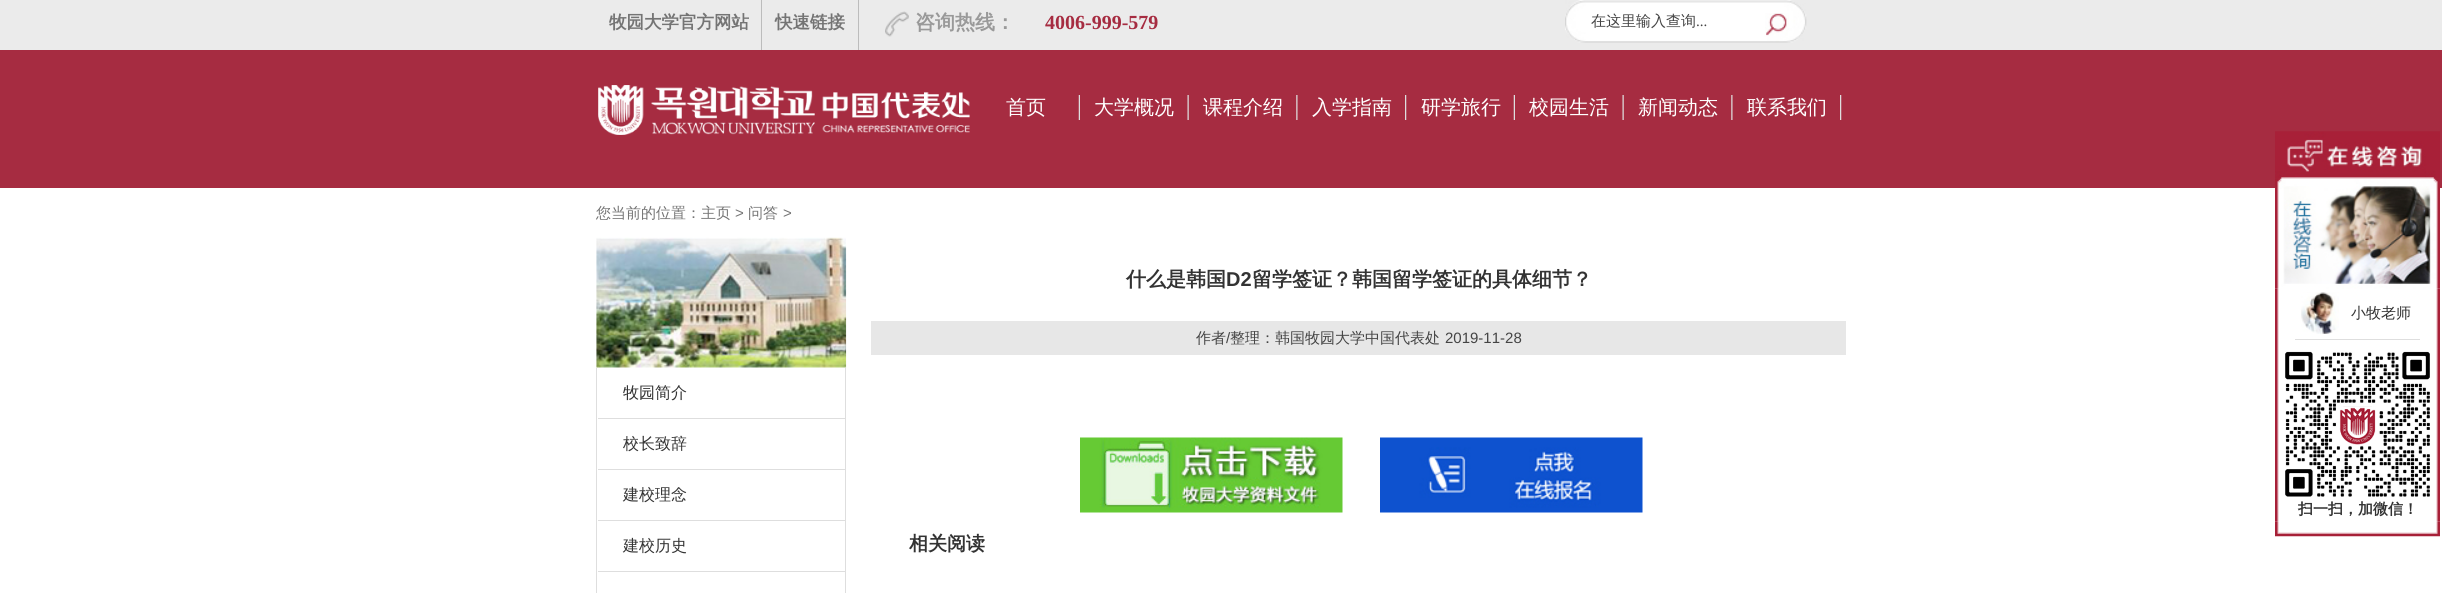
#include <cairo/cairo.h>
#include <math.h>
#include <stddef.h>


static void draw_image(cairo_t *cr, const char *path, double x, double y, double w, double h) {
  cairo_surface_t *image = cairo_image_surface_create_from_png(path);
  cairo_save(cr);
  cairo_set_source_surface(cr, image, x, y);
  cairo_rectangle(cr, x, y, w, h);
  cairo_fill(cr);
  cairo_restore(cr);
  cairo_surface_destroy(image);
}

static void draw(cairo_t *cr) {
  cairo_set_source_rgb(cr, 1, 1, 1);
  cairo_paint(cr);
  cairo_set_source_rgb(cr, 235 / 255.0, 235 / 255.0, 235 / 255.0);
  cairo_rectangle(cr, 0, 0, 2442, 50);
  cairo_fill(cr);
  cairo_set_source_rgb(cr, 188 / 255.0, 188 / 255.0, 188 / 255.0);
  cairo_rectangle(cr, 761, 0, 1, 50);
  cairo_fill(cr);
  cairo_rectangle(cr, 858, 0, 1, 50);
  cairo_fill(cr);
  draw_image(cr, "images/1.png", 885, 11, 24, 26);
  draw_image(cr, "images/2.png", 1565, 0, 242, 43);
  draw_image(cr, "images/3.png", 1765, 13, 24, 23);
  cairo_set_source_rgb(cr, 166 / 255.0, 44 / 255.0, 65 / 255.0);
  cairo_rectangle(cr, 0, 50, 2442, 138);
  cairo_fill(cr);
  draw_image(cr, "images/4.png", 598, 85, 372, 50);
  draw_image(cr, "images/5.png", 1078, 95, 2, 25);
  draw_image(cr, "images/6.png", 1187, 95, 2, 25);
  draw_image(cr, "images/7.png", 1296, 95, 2, 25);
  draw_image(cr, "images/8.png", 1405, 95, 2, 25);
  draw_image(cr, "images/5.png", 1513, 95, 2, 25);
  draw_image(cr, "images/6.png", 1622, 95, 2, 25);
  draw_image(cr, "images/7.png", 1731, 95, 2, 25);
  draw_image(cr, "images/8.png", 1840, 95, 2, 25);
  draw_image(cr, "images/9.png", 596, 237, 251, 131);
  cairo_set_source_rgb(cr, 222 / 255.0, 222 / 255.0, 222 / 255.0);
  cairo_rectangle(cr, 845, 368, 1, 225);
  cairo_fill(cr);
  cairo_rectangle(cr, 596, 368, 1, 225);
  cairo_fill(cr);
  cairo_rectangle(cr, 598, 418, 247, 1);
  cairo_fill(cr);
  cairo_rectangle(cr, 598, 469, 247, 1);
  cairo_fill(cr);
  cairo_rectangle(cr, 598, 520, 247, 1);
  cairo_fill(cr);
  cairo_rectangle(cr, 598, 571, 247, 1);
  cairo_fill(cr);
  cairo_set_source_rgb(cr, 231 / 255.0, 231 / 255.0, 231 / 255.0);
  cairo_rectangle(cr, 871, 321, 975, 34);
  cairo_fill(cr);
  draw_image(cr, "images/10.png", 1080, 437, 263, 76);
  draw_image(cr, "images/11.png", 1380, 437, 263, 76);
  draw_image(cr, "images/12.png", 2275, 131, 165, 48);
  draw_image(cr, "images/14.png", 2275, 288, 165, 52);
  draw_image(cr, "images/13.png", 2275, 178, 165, 111);
  draw_image(cr, "images/15.png", 2301, 292, 38, 42);
  cairo_set_source_rgb(cr, 222 / 255.0, 222 / 255.0, 222 / 255.0);
  cairo_rectangle(cr, 2295, 339, 125, 1);
  cairo_fill(cr);
  draw_image(cr, "images/16.png", 2275, 340, 165, 182);
  draw_image(cr, "images/17.png", 2285, 351, 145, 146);
  draw_image(cr, "images/18.png", 2275, 521, 165, 16);
  cairo_select_font_face(cr, "WenQuanYi Zen Hei", CAIRO_FONT_SLANT_NORMAL, CAIRO_FONT_WEIGHT_BOLD);
  cairo_set_font_size(cr, 17.5);
  cairo_set_source_rgb(cr, 116 / 255.0, 116 / 255.0, 116 / 255.0);
  cairo_move_to(cr, 609, 28);
  cairo_show_text(cr, "牧园大学官方网站");
  cairo_move_to(cr, 775, 28);
  cairo_show_text(cr, "快速链接");
  cairo_set_font_size(cr, 20);
  cairo_set_source_rgb(cr, 153 / 255.0, 153 / 255.0, 153 / 255.0);
  cairo_move_to(cr, 915, 29);
  cairo_show_text(cr, "咨询热线：");
  cairo_select_font_face(cr, "Liberation Serif", CAIRO_FONT_SLANT_NORMAL, CAIRO_FONT_WEIGHT_BOLD);
  cairo_set_source_rgb(cr, 166 / 255.0, 44 / 255.0, 65 / 255.0);
  cairo_move_to(cr, 1045, 29);
  cairo_show_text(cr, "4006-999-579");
  cairo_select_font_face(cr, "WenQuanYi Zen Hei Medium", CAIRO_FONT_SLANT_NORMAL, CAIRO_FONT_WEIGHT_NORMAL);
  cairo_set_font_size(cr, 15);
  cairo_set_source_rgb(cr, 68 / 255.0, 68 / 255.0, 68 / 255.0);
  cairo_move_to(cr, 1591, 26);
  cairo_show_text(cr, "在这里输入查询");
  cairo_select_font_face(cr, "Liberation Serif", CAIRO_FONT_SLANT_NORMAL, CAIRO_FONT_WEIGHT_NORMAL);
  cairo_move_to(cr, 1696, 26);
  cairo_show_text(cr, "...");
  cairo_select_font_face(cr, "WenQuanYi Zen Hei Medium", CAIRO_FONT_SLANT_NORMAL, CAIRO_FONT_WEIGHT_NORMAL);
  cairo_set_font_size(cr, 20);
  cairo_set_source_rgb(cr, 1, 1, 1);
  cairo_move_to(cr, 1006, 114);
  cairo_show_text(cr, "首页");
  cairo_move_to(cr, 1094, 114);
  cairo_show_text(cr, "大学概况");
  cairo_move_to(cr, 1203, 114);
  cairo_show_text(cr, "课程介绍");
  cairo_move_to(cr, 1312, 114);
  cairo_show_text(cr, "入学指南");
  cairo_move_to(cr, 1421, 114);
  cairo_show_text(cr, "研学旅行");
  cairo_move_to(cr, 1529, 114);
  cairo_show_text(cr, "校园生活");
  cairo_move_to(cr, 1638, 114);
  cairo_show_text(cr, "新闻动态");
  cairo_move_to(cr, 1747, 114);
  cairo_show_text(cr, "联系我们");
  cairo_set_font_size(cr, 15);
  cairo_set_source_rgb(cr, 116 / 255.0, 116 / 255.0, 116 / 255.0);
  cairo_move_to(cr, 596, 218);
  cairo_show_text(cr, "您当前的位置：主页");
  cairo_select_font_face(cr, "Liberation Sans", CAIRO_FONT_SLANT_NORMAL, CAIRO_FONT_WEIGHT_NORMAL);
  cairo_move_to(cr, 735, 218);
  cairo_show_text(cr, ">");
  cairo_select_font_face(cr, "WenQuanYi Zen Hei Medium", CAIRO_FONT_SLANT_NORMAL, CAIRO_FONT_WEIGHT_NORMAL);
  cairo_move_to(cr, 748, 218);
  cairo_show_text(cr, "问答");
  cairo_select_font_face(cr, "Liberation Sans", CAIRO_FONT_SLANT_NORMAL, CAIRO_FONT_WEIGHT_NORMAL);
  cairo_move_to(cr, 783, 218);
  cairo_show_text(cr, ">");
  cairo_select_font_face(cr, "WenQuanYi Zen Hei Medium", CAIRO_FONT_SLANT_NORMAL, CAIRO_FONT_WEIGHT_NORMAL);
  cairo_set_font_size(cr, 16);
  cairo_set_source_rgb(cr, 51 / 255.0, 51 / 255.0, 51 / 255.0);
  cairo_move_to(cr, 623, 398);
  cairo_show_text(cr, "牧园简介");
  cairo_move_to(cr, 623, 449);
  cairo_show_text(cr, "校长致辞");
  cairo_move_to(cr, 623, 500);
  cairo_show_text(cr, "建校理念");
  cairo_move_to(cr, 623, 551);
  cairo_show_text(cr, "建校历史");
  cairo_select_font_face(cr, "WenQuanYi Zen Hei", CAIRO_FONT_SLANT_NORMAL, CAIRO_FONT_WEIGHT_BOLD);
  cairo_set_font_size(cr, 20);
  cairo_move_to(cr, 1126, 286);
  cairo_show_text(cr, "什么是韩国");
  cairo_select_font_face(cr, "Liberation Sans", CAIRO_FONT_SLANT_NORMAL, CAIRO_FONT_WEIGHT_BOLD);
  cairo_move_to(cr, 1226, 286);
  cairo_show_text(cr, "D2");
  cairo_select_font_face(cr, "WenQuanYi Zen Hei", CAIRO_FONT_SLANT_NORMAL, CAIRO_FONT_WEIGHT_BOLD);
  cairo_move_to(cr, 1252, 286);
  cairo_show_text(cr, "留学签证？韩国留学签证的具体细节？");
  cairo_select_font_face(cr, "WenQuanYi Zen Hei Medium", CAIRO_FONT_SLANT_NORMAL, CAIRO_FONT_WEIGHT_NORMAL);
  cairo_set_font_size(cr, 15);
  cairo_set_source_rgb(cr, 68 / 255.0, 68 / 255.0, 68 / 255.0);
  cairo_move_to(cr, 1196, 343);
  cairo_show_text(cr, "作者");
  cairo_select_font_face(cr, "Liberation Sans", CAIRO_FONT_SLANT_NORMAL, CAIRO_FONT_WEIGHT_NORMAL);
  cairo_move_to(cr, 1226, 343);
  cairo_show_text(cr, "/");
  cairo_select_font_face(cr, "WenQuanYi Zen Hei Medium", CAIRO_FONT_SLANT_NORMAL, CAIRO_FONT_WEIGHT_NORMAL);
  cairo_move_to(cr, 1230, 343);
  cairo_show_text(cr, "整理：韩国牧园大学中国代表处");
  cairo_select_font_face(cr, "Liberation Sans", CAIRO_FONT_SLANT_NORMAL, CAIRO_FONT_WEIGHT_NORMAL);
  cairo_move_to(cr, 1445, 343);
  cairo_show_text(cr, "2019-11-28");
  cairo_select_font_face(cr, "WenQuanYi Zen Hei", CAIRO_FONT_SLANT_NORMAL, CAIRO_FONT_WEIGHT_BOLD);
  cairo_set_font_size(cr, 19);
  cairo_set_source_rgb(cr, 51 / 255.0, 51 / 255.0, 51 / 255.0);
  cairo_move_to(cr, 909, 550);
  cairo_show_text(cr, "相关阅读");
  cairo_select_font_face(cr, "WenQuanYi Zen Hei Medium", CAIRO_FONT_SLANT_NORMAL, CAIRO_FONT_WEIGHT_NORMAL);
  cairo_set_font_size(cr, 15);
  cairo_move_to(cr, 2351, 318);
  cairo_show_text(cr, "小牧老师");
  cairo_select_font_face(cr, "WenQuanYi Zen Hei", CAIRO_FONT_SLANT_NORMAL, CAIRO_FONT_WEIGHT_BOLD);
  cairo_move_to(cr, 2298, 514);
  cairo_show_text(cr, "扫一扫，加微信！");
}

int main(void) {
  cairo_surface_t *surface = cairo_image_surface_create(CAIRO_FORMAT_RGB24, 2442, 593);
  cairo_t *cr = cairo_create(surface);
  cairo_font_options_t *options = cairo_font_options_create();
  cairo_font_options_set_hint_metrics(options, CAIRO_HINT_METRICS_OFF);
  cairo_font_options_set_hint_style(options, CAIRO_HINT_STYLE_NONE);
  cairo_set_font_options(cr, options);
  cairo_set_miter_limit(cr, 4);
  draw(cr);
  cairo_surface_write_to_png(surface, "out.png");
  cairo_font_options_destroy(options);
  cairo_destroy(cr);
  cairo_surface_destroy(surface);
  return 0;
}
